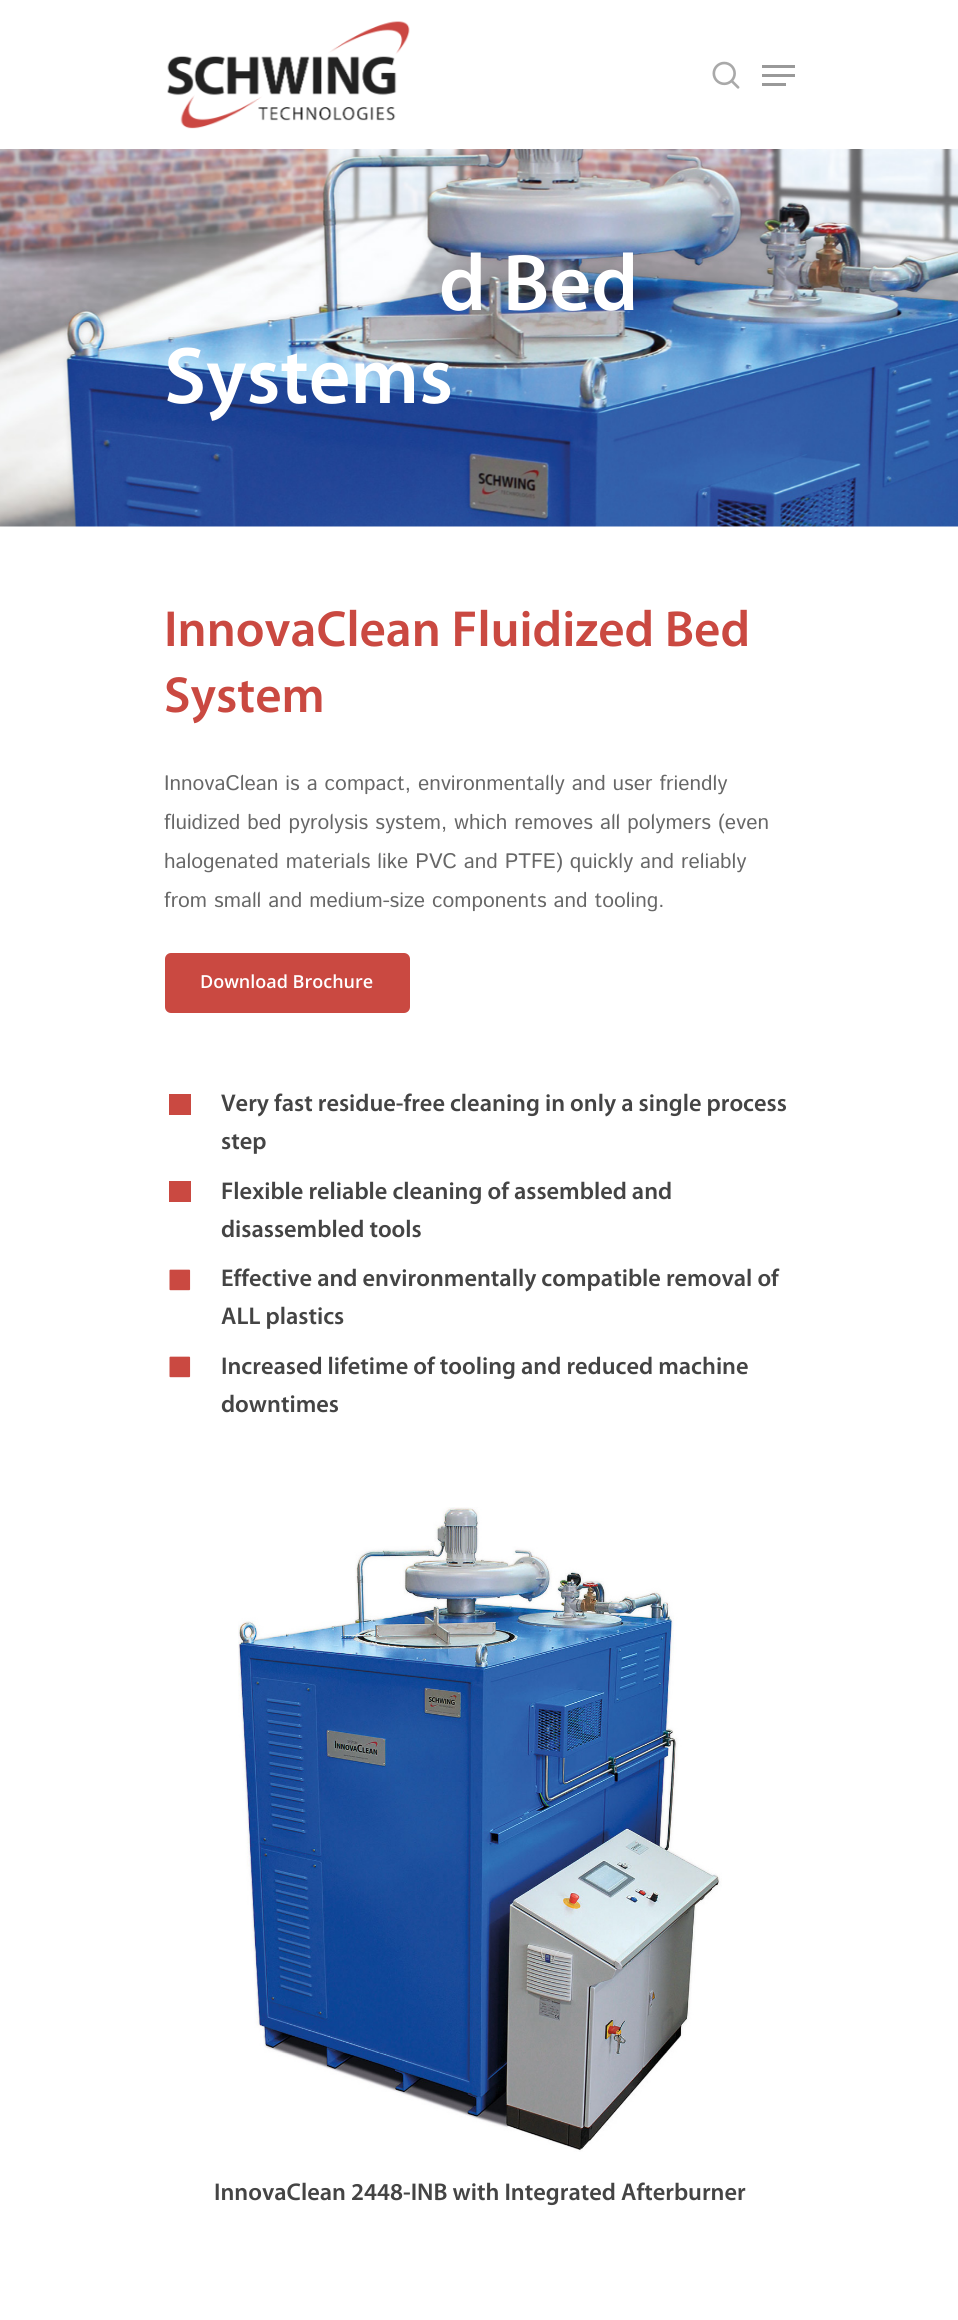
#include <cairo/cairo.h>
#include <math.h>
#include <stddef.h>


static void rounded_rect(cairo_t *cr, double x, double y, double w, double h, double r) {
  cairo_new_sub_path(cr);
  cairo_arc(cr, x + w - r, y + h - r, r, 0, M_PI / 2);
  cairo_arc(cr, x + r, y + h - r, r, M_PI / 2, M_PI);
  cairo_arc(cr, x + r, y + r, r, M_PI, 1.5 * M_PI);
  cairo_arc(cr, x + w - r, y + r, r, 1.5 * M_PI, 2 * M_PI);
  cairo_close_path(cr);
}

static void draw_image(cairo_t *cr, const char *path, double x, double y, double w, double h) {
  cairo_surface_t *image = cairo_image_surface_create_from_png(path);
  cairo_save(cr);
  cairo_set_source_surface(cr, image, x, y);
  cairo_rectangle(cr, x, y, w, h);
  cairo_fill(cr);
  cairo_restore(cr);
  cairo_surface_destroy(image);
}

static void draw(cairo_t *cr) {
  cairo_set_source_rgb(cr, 1, 1, 1);
  cairo_paint(cr);
  draw_image(cr, "images/1.png", 167, 21, 243, 108);
  draw_image(cr, "images/2.png", 712, 61, 28, 28);
  cairo_set_source_rgb(cr, 153 / 255.0, 153 / 255.0, 153 / 255.0);
  cairo_rectangle(cr, 762, 65, 33, 3);
  cairo_fill(cr);
  cairo_rectangle(cr, 762, 83, 24, 3);
  cairo_fill(cr);
  cairo_rectangle(cr, 762, 74, 33, 3);
  cairo_fill(cr);
  draw_image(cr, "images/3.png", 0, 149, 958, 378);
  cairo_set_source_rgb(cr, 202 / 255.0, 73 / 255.0, 65 / 255.0);
  rounded_rect(cr, 165, 953, 245, 60, 6);
  cairo_fill(cr);
  cairo_rectangle(cr, 169, 1094, 22, 21);
  cairo_fill(cr);
  cairo_rectangle(cr, 169, 1181, 22, 21);
  cairo_fill(cr);
  draw_image(cr, "images/4.png", 169, 1269, 22, 22);
  draw_image(cr, "images/4.png", 169, 1356, 22, 22);
  draw_image(cr, "images/5.png", 238, 1507, 484, 645);
  cairo_select_font_face(cr, "Myriad SemiBold", CAIRO_FONT_SLANT_NORMAL, CAIRO_FONT_WEIGHT_NORMAL);
  cairo_set_font_size(cr, 81);
  cairo_set_source_rgb(cr, 1, 1, 1);
  cairo_move_to(cr, 439, 310);
  cairo_show_text(cr, "d Bed");
  cairo_move_to(cr, 164, 403);
  cairo_show_text(cr, "Systems");
  cairo_set_font_size(cr, 51);
  cairo_set_source_rgb(cr, 202 / 255.0, 73 / 255.0, 65 / 255.0);
  cairo_move_to(cr, 164, 646);
  cairo_show_text(cr, "InnovaClean Fluidized Bed");
  cairo_move_to(cr, 164, 712);
  cairo_show_text(cr, "System");
  cairo_select_font_face(cr, "Istok Web", CAIRO_FONT_SLANT_NORMAL, CAIRO_FONT_WEIGHT_NORMAL);
  cairo_set_font_size(cr, 21);
  cairo_set_source_rgb(cr, 103 / 255.0, 103 / 255.0, 103 / 255.0);
  cairo_move_to(cr, 164, 790);
  cairo_show_text(cr, "InnovaClean is a compact, environmentally and user friendly");
  cairo_move_to(cr, 164, 829);
  cairo_show_text(cr, "fluidized bed pyrolysis system, which removes all polymers (even");
  cairo_move_to(cr, 164, 868);
  cairo_show_text(cr, "halogenated materials like PVC and PTFE) quickly and reliably");
  cairo_move_to(cr, 164, 907);
  cairo_show_text(cr, "from small and medium-size components and tooling.");
  cairo_select_font_face(cr, "Open Sans SemiBold", CAIRO_FONT_SLANT_NORMAL, CAIRO_FONT_WEIGHT_NORMAL);
  cairo_set_font_size(cr, 18);
  cairo_set_source_rgb(cr, 1, 1, 1);
  cairo_move_to(cr, 200, 988);
  cairo_show_text(cr, "Download Brochure");
  cairo_select_font_face(cr, "Myriad SemiBold", CAIRO_FONT_SLANT_NORMAL, CAIRO_FONT_WEIGHT_NORMAL);
  cairo_set_font_size(cr, 24.3);
  cairo_set_source_rgb(cr, 68 / 255.0, 68 / 255.0, 68 / 255.0);
  cairo_move_to(cr, 221, 1111);
  cairo_show_text(cr, "Very fast residue-free cleaning in only a single process");
  cairo_move_to(cr, 221, 1149);
  cairo_show_text(cr, "step");
  cairo_move_to(cr, 221, 1199);
  cairo_show_text(cr, "Flexible reliable cleaning of assembled and");
  cairo_move_to(cr, 221, 1237);
  cairo_show_text(cr, "disassembled tools");
  cairo_move_to(cr, 221, 1286);
  cairo_show_text(cr, "Effective and environmentally compatible removal of");
  cairo_move_to(cr, 221, 1324);
  cairo_show_text(cr, "ALL plastics");
  cairo_move_to(cr, 221, 1374);
  cairo_show_text(cr, "Increased lifetime of tooling and reduced machine");
  cairo_move_to(cr, 221, 1412);
  cairo_show_text(cr, "downtimes");
  cairo_move_to(cr, 214, 2200);
  cairo_show_text(cr, "InnovaClean 2448-INB with Integrated Afterburner");
}

int main(void) {
  cairo_surface_t *surface = cairo_image_surface_create(CAIRO_FORMAT_RGB24, 958, 2320);
  cairo_t *cr = cairo_create(surface);
  cairo_font_options_t *options = cairo_font_options_create();
  cairo_font_options_set_hint_metrics(options, CAIRO_HINT_METRICS_OFF);
  cairo_font_options_set_hint_style(options, CAIRO_HINT_STYLE_NONE);
  cairo_set_font_options(cr, options);
  cairo_set_miter_limit(cr, 4);
  draw(cr);
  cairo_surface_write_to_png(surface, "out.png");
  cairo_font_options_destroy(options);
  cairo_destroy(cr);
  cairo_surface_destroy(surface);
  return 0;
}
